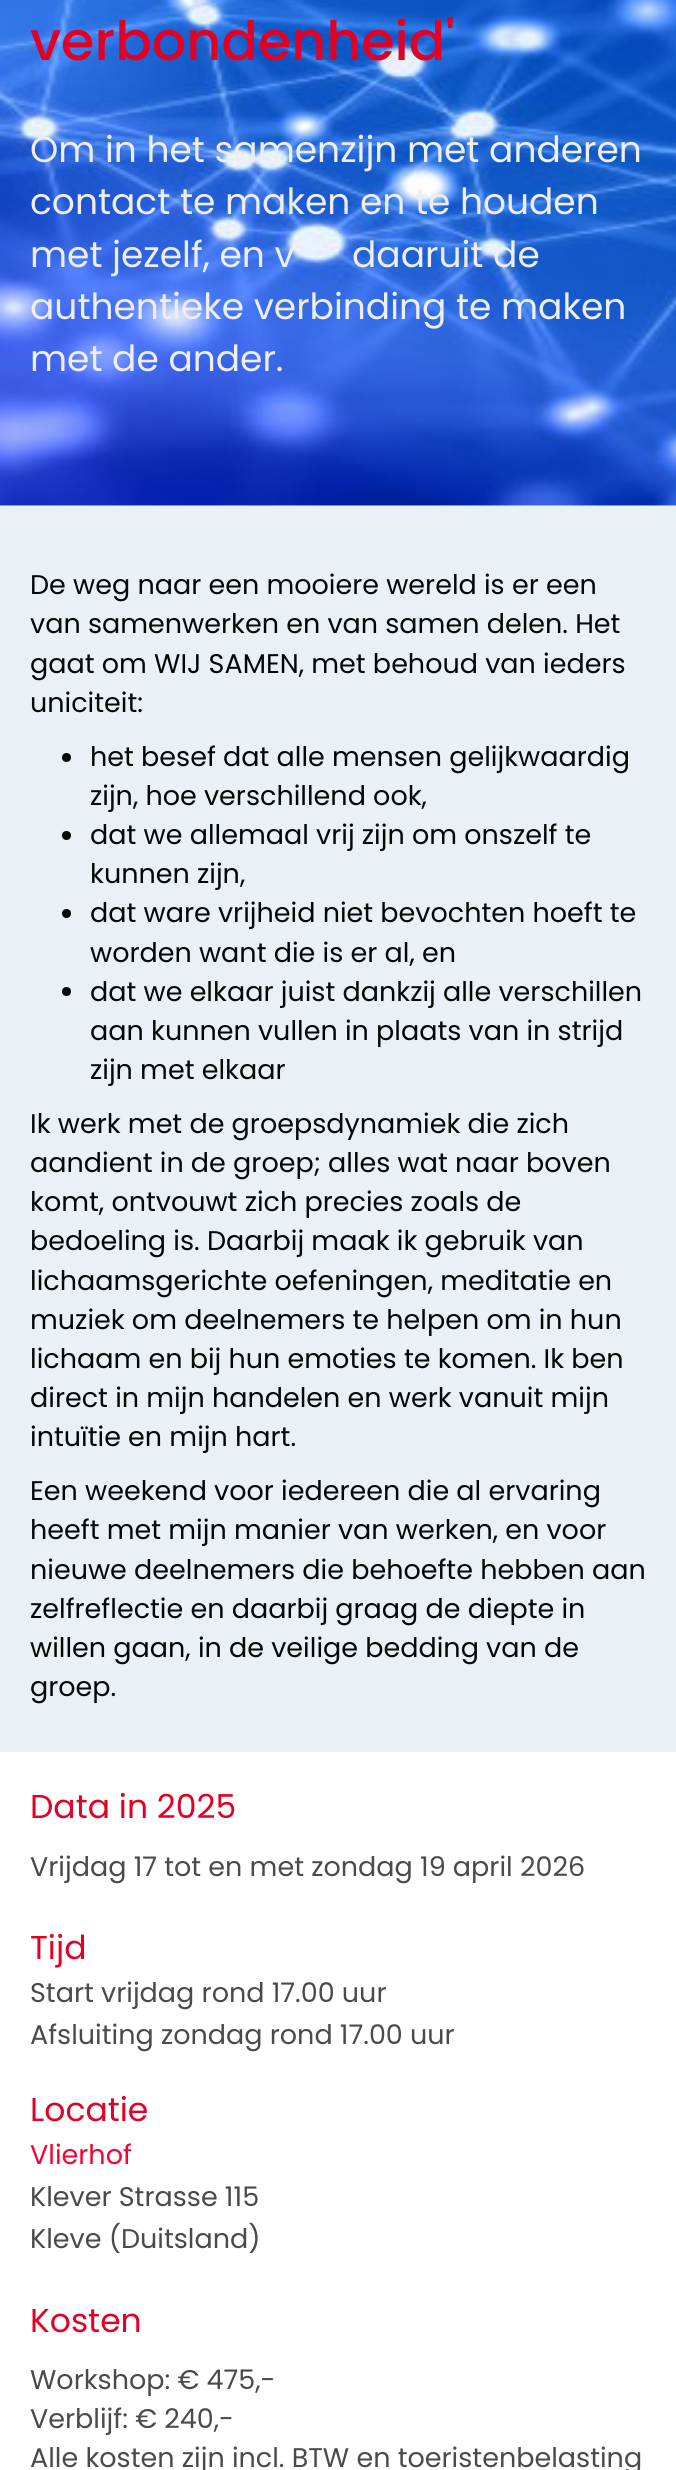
#include <cairo/cairo.h>
#include <math.h>
#include <stddef.h>


static void draw_image(cairo_t *cr, const char *path, double x, double y, double w, double h) {
  cairo_surface_t *image = cairo_image_surface_create_from_png(path);
  cairo_save(cr);
  cairo_set_source_surface(cr, image, x, y);
  cairo_rectangle(cr, x, y, w, h);
  cairo_fill(cr);
  cairo_restore(cr);
  cairo_surface_destroy(image);
}

static void draw(cairo_t *cr) {
  cairo_set_source_rgb(cr, 1, 1, 1);
  cairo_paint(cr);
  draw_image(cr, "images/1.png", 0, 0, 676, 506);
  cairo_set_source_rgb(cr, 233 / 255.0, 240 / 255.0, 246 / 255.0);
  cairo_rectangle(cr, 0, 506, 676, 1246);
  cairo_fill(cr);
  cairo_set_source_rgb(cr, 0, 7 / 255.0, 5 / 255.0);
  cairo_arc(cr, 66.5, 757.5, 4.5, 0, 2 * M_PI);
  cairo_fill(cr);
  cairo_arc(cr, 66.5, 835.5, 4.5, 0, 2 * M_PI);
  cairo_fill(cr);
  cairo_arc(cr, 66.5, 913.5, 4.5, 0, 2 * M_PI);
  cairo_fill(cr);
  cairo_arc(cr, 66.5, 991.5, 4.5, 0, 2 * M_PI);
  cairo_fill(cr);
  cairo_select_font_face(cr, "Poppins Medium", CAIRO_FONT_SLANT_NORMAL, CAIRO_FONT_WEIGHT_NORMAL);
  cairo_set_font_size(cr, 54);
  cairo_set_source_rgb(cr, 226 / 255.0, 0, 37 / 255.0);
  cairo_move_to(cr, 30, 60);
  cairo_show_text(cr, "verbondenheid'");
  cairo_select_font_face(cr, "Poppins", CAIRO_FONT_SLANT_NORMAL, CAIRO_FONT_WEIGHT_NORMAL);
  cairo_set_font_size(cr, 36);
  cairo_set_source_rgb(cr, 238 / 255.0, 238 / 255.0, 238 / 255.0);
  cairo_move_to(cr, 30, 162);
  cairo_show_text(cr, "Om in het samenzijn met anderen");
  cairo_move_to(cr, 30, 214);
  cairo_show_text(cr, "contact te maken en te houden");
  cairo_move_to(cr, 30, 267);
  cairo_show_text(cr, "met jezelf, en v");
  cairo_move_to(cr, 352, 267);
  cairo_show_text(cr, "daaruit de");
  cairo_move_to(cr, 30, 319);
  cairo_show_text(cr, "authentieke verbinding te maken");
  cairo_move_to(cr, 30, 371);
  cairo_show_text(cr, "met de ander.");
  cairo_set_font_size(cr, 27);
  cairo_set_source_rgb(cr, 0, 7 / 255.0, 5 / 255.0);
  cairo_move_to(cr, 30, 594);
  cairo_show_text(cr, "De weg naar een mooiere wereld is er een");
  cairo_move_to(cr, 30, 633);
  cairo_show_text(cr, "van samenwerken en van samen delen. Het");
  cairo_move_to(cr, 30, 673);
  cairo_show_text(cr, "gaat om WIJ SAMEN, met behoud van ieders");
  cairo_move_to(cr, 30, 712);
  cairo_show_text(cr, "uniciteit:");
  cairo_move_to(cr, 90, 766);
  cairo_show_text(cr, "het besef dat alle mensen gelijkwaardig");
  cairo_move_to(cr, 90, 805);
  cairo_show_text(cr, "zijn, hoe verschillend ook,");
  cairo_move_to(cr, 90, 844);
  cairo_show_text(cr, "dat we allemaal vrij zijn om onszelf te");
  cairo_move_to(cr, 90, 883);
  cairo_show_text(cr, "kunnen zijn,");
  cairo_move_to(cr, 90, 922);
  cairo_show_text(cr, "dat ware vrijheid niet bevochten hoeft te");
  cairo_move_to(cr, 90, 962);
  cairo_show_text(cr, "worden want die is er al, en");
  cairo_move_to(cr, 90, 1001);
  cairo_show_text(cr, "dat we elkaar juist dankzij alle verschillen");
  cairo_move_to(cr, 90, 1040);
  cairo_show_text(cr, "aan kunnen vullen in plaats van in strijd");
  cairo_move_to(cr, 90, 1079);
  cairo_show_text(cr, "zijn met elkaar");
  cairo_move_to(cr, 30, 1133);
  cairo_show_text(cr, "Ik werk met de groepsdynamiek die zich");
  cairo_move_to(cr, 30, 1172);
  cairo_show_text(cr, "aandient in de groep; alles wat naar boven");
  cairo_move_to(cr, 30, 1211);
  cairo_show_text(cr, "komt, ontvouwt zich precies zoals de");
  cairo_move_to(cr, 30, 1250);
  cairo_show_text(cr, "bedoeling is. Daarbij maak ik gebruik van");
  cairo_move_to(cr, 30, 1290);
  cairo_show_text(cr, "lichaamsgerichte oefeningen, meditatie en");
  cairo_move_to(cr, 30, 1329);
  cairo_show_text(cr, "muziek om deelnemers te helpen om in hun");
  cairo_move_to(cr, 30, 1368);
  cairo_show_text(cr, "lichaam en bij hun emoties te komen. Ik ben");
  cairo_move_to(cr, 30, 1407);
  cairo_show_text(cr, "direct in mijn handelen en werk vanuit mijn");
  cairo_move_to(cr, 30, 1446);
  cairo_show_text(cr, "intuïtie en mijn hart.");
  cairo_move_to(cr, 30, 1500);
  cairo_show_text(cr, "Een weekend voor iedereen die al ervaring");
  cairo_move_to(cr, 30, 1539);
  cairo_show_text(cr, "heeft met mijn manier van werken, en voor");
  cairo_move_to(cr, 30, 1579);
  cairo_show_text(cr, "nieuwe deelnemers die behoefte hebben aan");
  cairo_move_to(cr, 30, 1618);
  cairo_show_text(cr, "zelfreflectie en daarbij graag de diepte in");
  cairo_move_to(cr, 30, 1657);
  cairo_show_text(cr, "willen gaan, in de veilige bedding van de");
  cairo_move_to(cr, 30, 1696);
  cairo_show_text(cr, "groep.");
  cairo_set_font_size(cr, 33);
  cairo_set_source_rgb(cr, 226 / 255.0, 0, 37 / 255.0);
  cairo_move_to(cr, 30, 1818);
  cairo_show_text(cr, "Data in 2025");
  cairo_set_font_size(cr, 27);
  cairo_set_source_rgb(cr, 74 / 255.0, 74 / 255.0, 74 / 255.0);
  cairo_move_to(cr, 30, 1876);
  cairo_show_text(cr, "Vrijdag 17 tot en met zondag 19 april 2026");
  cairo_set_font_size(cr, 33);
  cairo_set_source_rgb(cr, 226 / 255.0, 0, 37 / 255.0);
  cairo_move_to(cr, 30, 1959);
  cairo_show_text(cr, "Tijd");
  cairo_set_font_size(cr, 27);
  cairo_set_source_rgb(cr, 74 / 255.0, 74 / 255.0, 74 / 255.0);
  cairo_move_to(cr, 30, 2002);
  cairo_show_text(cr, "Start vrijdag rond 17.00 uur");
  cairo_move_to(cr, 30, 2044);
  cairo_show_text(cr, "Afsluiting zondag rond 17.00 uur");
  cairo_set_font_size(cr, 33);
  cairo_set_source_rgb(cr, 226 / 255.0, 0, 37 / 255.0);
  cairo_move_to(cr, 30, 2121);
  cairo_show_text(cr, "Locatie");
  cairo_set_font_size(cr, 27);
  cairo_set_source_rgb(cr, 251 / 255.0, 0, 50 / 255.0);
  cairo_move_to(cr, 30, 2164);
  cairo_show_text(cr, "Vlierhof");
  cairo_set_source_rgb(cr, 74 / 255.0, 74 / 255.0, 74 / 255.0);
  cairo_move_to(cr, 30, 2206);
  cairo_show_text(cr, "Klever Strasse 115");
  cairo_move_to(cr, 30, 2248);
  cairo_show_text(cr, "Kleve (Duitsland)");
  cairo_set_font_size(cr, 33);
  cairo_set_source_rgb(cr, 226 / 255.0, 0, 37 / 255.0);
  cairo_move_to(cr, 30, 2332);
  cairo_show_text(cr, "Kosten");
  cairo_set_font_size(cr, 27);
  cairo_set_source_rgb(cr, 74 / 255.0, 74 / 255.0, 74 / 255.0);
  cairo_move_to(cr, 30, 2389);
  cairo_show_text(cr, "Workshop: € 475,-");
  cairo_move_to(cr, 30, 2428);
  cairo_show_text(cr, "Verblijf: € 240,-");
  cairo_move_to(cr, 30, 2467);
  cairo_show_text(cr, "Alle kosten zijn incl. BTW en toeristenbelasting");
}

int main(void) {
  cairo_surface_t *surface = cairo_image_surface_create(CAIRO_FORMAT_RGB24, 676, 2470);
  cairo_t *cr = cairo_create(surface);
  cairo_font_options_t *options = cairo_font_options_create();
  cairo_font_options_set_hint_metrics(options, CAIRO_HINT_METRICS_OFF);
  cairo_font_options_set_hint_style(options, CAIRO_HINT_STYLE_NONE);
  cairo_set_font_options(cr, options);
  cairo_set_miter_limit(cr, 4);
  draw(cr);
  cairo_surface_write_to_png(surface, "out.png");
  cairo_font_options_destroy(options);
  cairo_destroy(cr);
  cairo_surface_destroy(surface);
  return 0;
}
